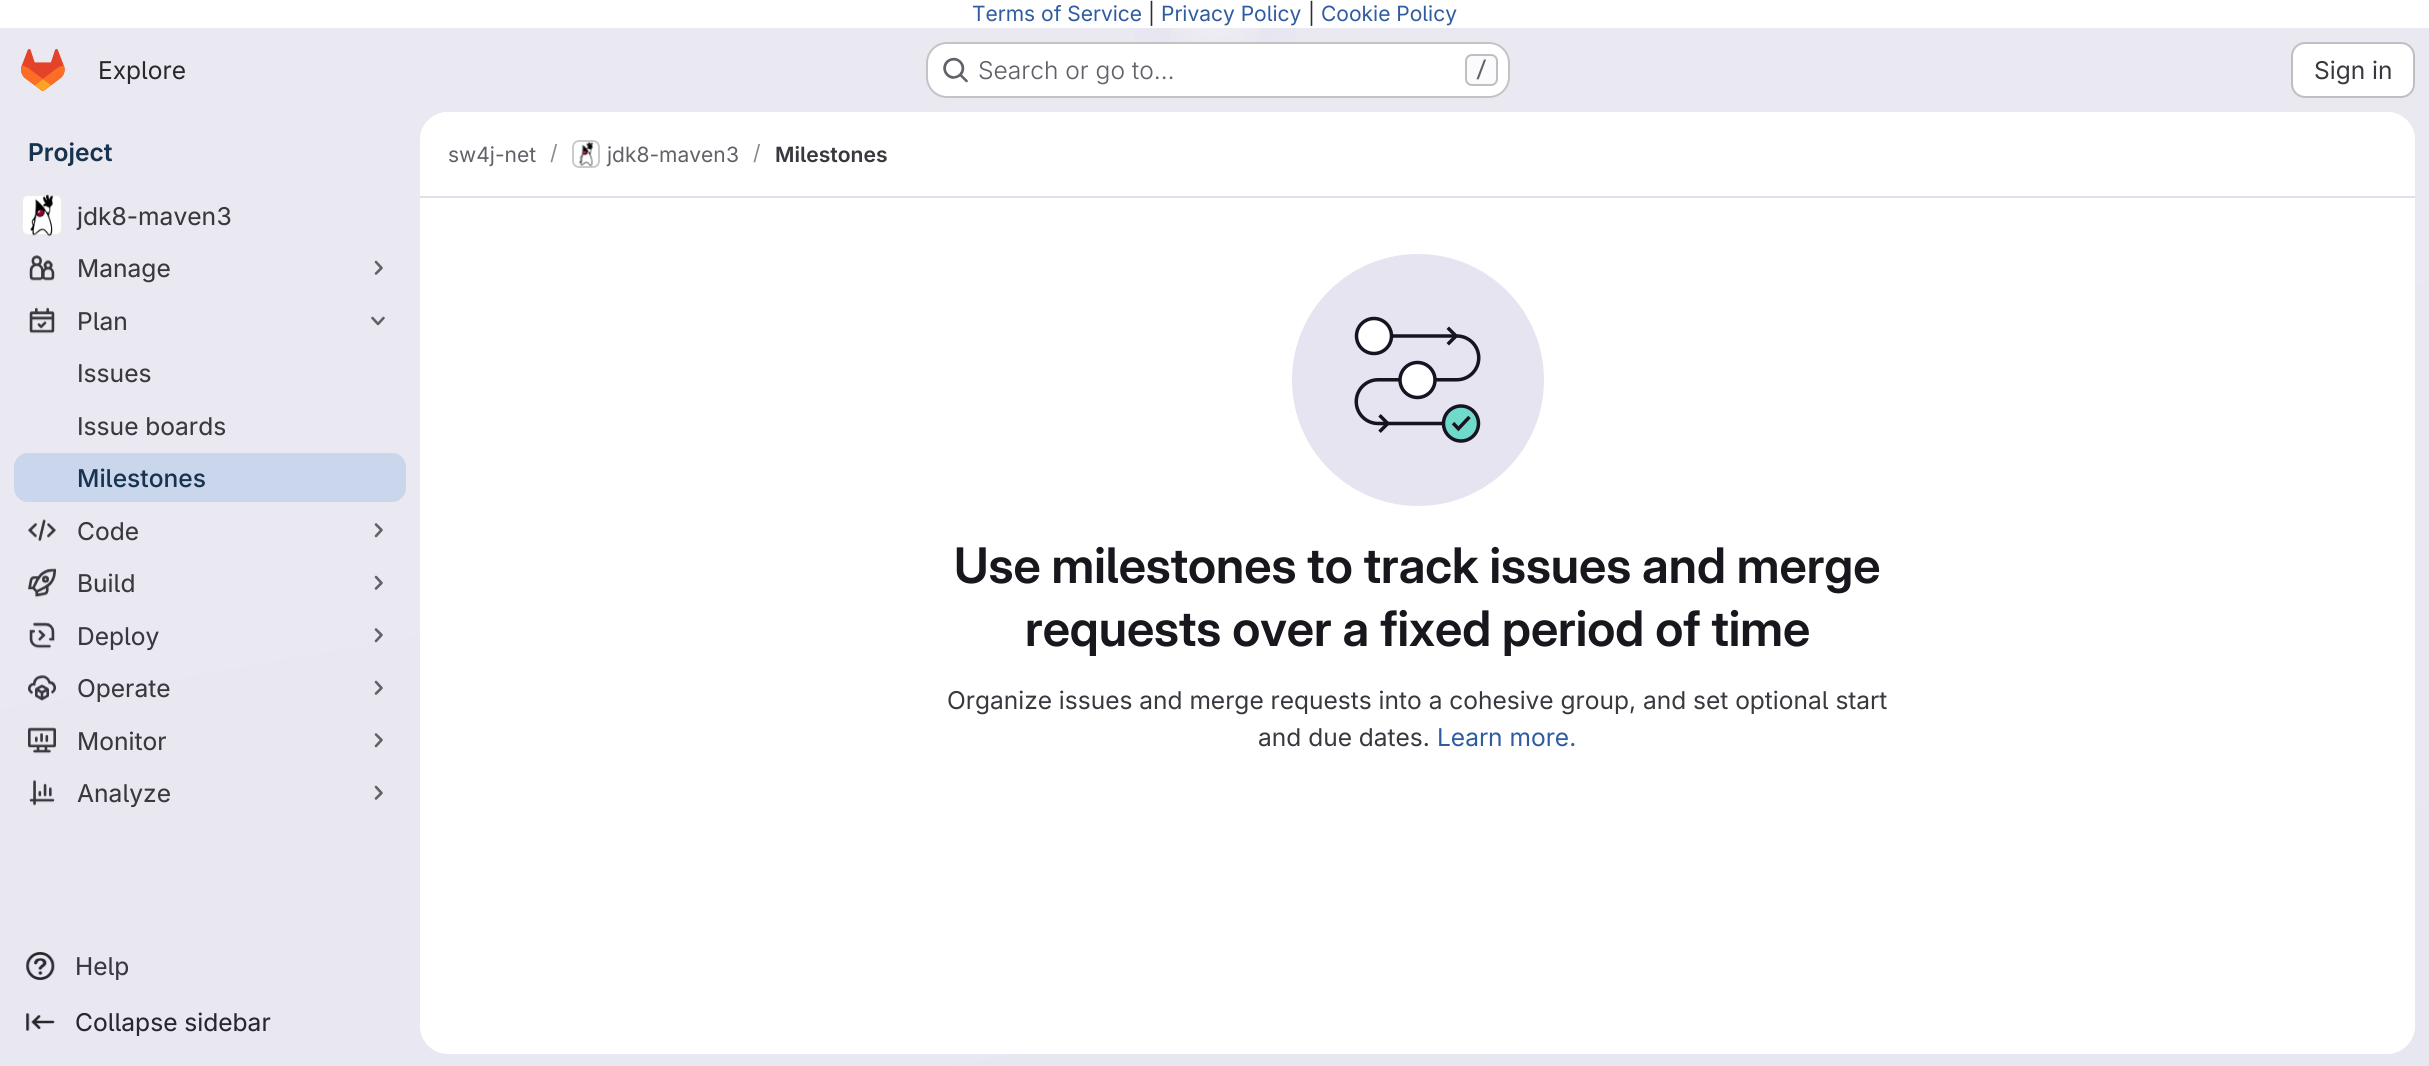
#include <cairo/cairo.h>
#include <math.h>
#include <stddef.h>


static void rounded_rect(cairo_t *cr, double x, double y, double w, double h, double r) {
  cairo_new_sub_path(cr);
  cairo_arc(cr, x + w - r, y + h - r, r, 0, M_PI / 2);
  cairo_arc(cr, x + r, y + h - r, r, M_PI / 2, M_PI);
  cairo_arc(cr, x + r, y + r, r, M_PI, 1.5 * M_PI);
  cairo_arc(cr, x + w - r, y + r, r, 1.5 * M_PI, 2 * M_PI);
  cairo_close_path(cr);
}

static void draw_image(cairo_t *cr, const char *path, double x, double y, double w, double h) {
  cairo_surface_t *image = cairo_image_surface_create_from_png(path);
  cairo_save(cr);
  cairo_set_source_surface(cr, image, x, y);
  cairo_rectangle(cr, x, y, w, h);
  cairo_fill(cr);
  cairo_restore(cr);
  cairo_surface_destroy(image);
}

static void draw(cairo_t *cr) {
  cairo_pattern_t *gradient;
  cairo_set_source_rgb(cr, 1, 1, 1);
  cairo_paint(cr);
  gradient = cairo_pattern_create_linear(1342, 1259, 1087, -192);
  cairo_pattern_add_color_stop_rgba(gradient, 0, 232 / 255.0, 230 / 255.0, 240 / 255.0, 1);
  cairo_pattern_add_color_stop_rgba(gradient, 0.7, 234 / 255.0, 233 / 255.0, 242 / 255.0, 1);
  cairo_set_source(cr, gradient);
  cairo_pattern_destroy(gradient);
  cairo_rectangle(cr, 0, 28, 2429, 1038);
  cairo_fill(cr);
  gradient = cairo_pattern_create_radial(0, 0, 0, 0, 0, 1);
  cairo_pattern_set_matrix(gradient, &(cairo_matrix_t){1.0 / 1215, 0, 0, 1.0 / 1068, -1.0 * 1215 / 1215, -1.0 * 0 / 1068});
  cairo_pattern_add_color_stop_rgba(gradient, 0, 228 / 255.0, 226 / 255.0, 237 / 255.0, 1);
  cairo_pattern_add_color_stop_rgba(gradient, 0.1, 228 / 255.0, 226 / 255.0, 237 / 255.0, 0);
  cairo_set_source(cr, gradient);
  cairo_pattern_destroy(gradient);
  cairo_rectangle(cr, 1134, 28, 162, 49);
  cairo_fill(cr);
  gradient = cairo_pattern_create_radial(1215, 0, 0, 1215, 0, 1617);
  cairo_pattern_add_color_stop_rgba(gradient, 0, 1, 1, 1, 0.6);
  cairo_pattern_add_color_stop_rgba(gradient, 0.04, 1, 1, 1, 0);
  cairo_set_source(cr, gradient);
  cairo_pattern_destroy(gradient);
  cairo_rectangle(cr, 1170, 28, 90, 14);
  cairo_fill(cr);
  draw_image(cr, "images/1.png", 21, 49, 44, 42);
  cairo_set_source_rgb(cr, 1, 1, 1);
  rounded_rect(cr, 926, 42, 584, 56, 21);
  cairo_fill(cr);
  rounded_rect(cr, 927, 43, 582, 54, 20);
  cairo_set_source_rgba(cr, 5 / 255.0, 5 / 255.0, 6 / 255.0, 0.24);
  cairo_stroke(cr);
  draw_image(cr, "images/2.png", 943, 57, 25, 26);
  cairo_set_source_rgb(cr, 251 / 255.0, 250 / 255.0, 253 / 255.0);
  rounded_rect(cr, 1466, 55, 31, 30, 6);
  cairo_fill_preserve(cr);
  cairo_set_source_rgb(cr, 191 / 255.0, 191 / 255.0, 195 / 255.0);
  cairo_stroke(cr);
  cairo_set_source_rgb(cr, 1, 1, 1);
  rounded_rect(cr, 2292, 43, 122, 54, 13);
  cairo_fill_preserve(cr);
  cairo_set_source_rgb(cr, 191 / 255.0, 191 / 255.0, 195 / 255.0);
  cairo_stroke(cr);
  cairo_set_source_rgb(cr, 1, 1, 1);
  rounded_rect(cr, 21, 194, 42, 42, 7);
  cairo_fill(cr);
  draw_image(cr, "images/3.png", 30, 194, 24, 43);
  rounded_rect(cr, 22, 195, 40, 40, 6);
  cairo_set_source_rgba(cr, 5 / 255.0, 5 / 255.0, 6 / 255.0, 0.08);
  cairo_stroke(cr);
  draw_image(cr, "images/4.png", 29, 255, 26, 26);
  cairo_new_path(cr);
  cairo_move_to(cr, 376, 262);
  cairo_line_to(cr, 381.5, 268);
  cairo_line_to(cr, 376, 273.5);
  cairo_set_source_rgb(cr, 98 / 255.0, 97 / 255.0, 104 / 255.0);
  cairo_set_line_width(cr, 2.6);
  cairo_set_line_cap(cr, CAIRO_LINE_CAP_ROUND);
  cairo_set_line_join(cr, CAIRO_LINE_JOIN_ROUND);
  cairo_stroke(cr);
  draw_image(cr, "images/5.png", 29, 307, 26, 27);
  cairo_new_path(cr);
  cairo_move_to(cr, 383.5, 318);
  cairo_line_to(cr, 378, 324);
  cairo_line_to(cr, 372.5, 318);
  cairo_stroke(cr);
  cairo_set_source_rgb(cr, 201 / 255.0, 214 / 255.0, 235 / 255.0);
  rounded_rect(cr, 14, 453, 392, 49, 14);
  cairo_fill(cr);
  draw_image(cr, "images/6.png", 28, 519, 28, 23);
  cairo_new_path(cr);
  cairo_move_to(cr, 376, 524.5);
  cairo_line_to(cr, 381.5, 530);
  cairo_line_to(cr, 376, 536);
  cairo_set_source_rgb(cr, 98 / 255.0, 97 / 255.0, 104 / 255.0);
  cairo_stroke(cr);
  draw_image(cr, "images/7.png", 28, 568, 28, 30);
  cairo_new_path(cr);
  cairo_move_to(cr, 376, 577);
  cairo_line_to(cr, 381.5, 583);
  cairo_line_to(cr, 376, 588.5);
  cairo_stroke(cr);
  draw_image(cr, "images/8.png", 29, 622, 26, 27);
  cairo_new_path(cr);
  cairo_move_to(cr, 376, 629.5);
  cairo_line_to(cr, 381.5, 635);
  cairo_line_to(cr, 376, 641);
  cairo_stroke(cr);
  draw_image(cr, "images/9.png", 28, 675, 28, 26);
  cairo_new_path(cr);
  cairo_move_to(cr, 376, 682);
  cairo_line_to(cr, 381.5, 688);
  cairo_line_to(cr, 376, 693.5);
  cairo_stroke(cr);
  draw_image(cr, "images/10.png", 28, 727, 28, 27);
  cairo_new_path(cr);
  cairo_move_to(cr, 376, 734.5);
  cairo_line_to(cr, 381.5, 740);
  cairo_line_to(cr, 376, 746);
  cairo_stroke(cr);
  draw_image(cr, "images/11.png", 29, 780, 26, 26);
  cairo_new_path(cr);
  cairo_move_to(cr, 376, 787);
  cairo_line_to(cr, 381.5, 793);
  cairo_line_to(cr, 376, 798.5);
  cairo_stroke(cr);
  draw_image(cr, "images/12.png", 26, 952, 29, 28);
  draw_image(cr, "images/13.png", 26, 1013, 29, 18);
  cairo_set_source_rgb(cr, 1, 1, 1);
  rounded_rect(cr, 420, 112, 1995, 942, 28);
  cairo_fill(cr);
  cairo_new_path(cr);
  cairo_move_to(cr, 448, 112);
  cairo_line_to(cr, 2387, 112);
  cairo_curve_to(cr, 2402.5, 112, 2415, 124.5, 2415, 140);
  cairo_line_to(cr, 2415, 198);
  cairo_line_to(cr, 420, 198);
  cairo_line_to(cr, 420, 140);
  cairo_curve_to(cr, 420, 124.5, 432.5, 112, 448, 112);
  cairo_close_path(cr);
  cairo_fill(cr);
  cairo_set_source_rgb(cr, 225 / 255.0, 223 / 255.0, 236 / 255.0);
  cairo_rectangle(cr, 420, 196, 1995, 2);
  cairo_fill(cr);
  rounded_rect(cr, 573, 141, 26, 26, 6);
  cairo_set_source_rgb(cr, 220 / 255.0, 220 / 255.0, 222 / 255.0);
  cairo_set_line_width(cr, 2);
  cairo_set_line_cap(cr, CAIRO_LINE_CAP_BUTT);
  cairo_set_line_join(cr, CAIRO_LINE_JOIN_MITER);
  cairo_stroke(cr);
  draw_image(cr, "images/14.png", 578, 142, 16, 25);
  rounded_rect(cr, 573, 141, 26, 26, 6);
  cairo_set_source_rgba(cr, 5 / 255.0, 5 / 255.0, 6 / 255.0, 0.08);
  cairo_stroke(cr);
  draw_image(cr, "images/15.png", 1292, 254, 252, 252);
  cairo_select_font_face(cr, "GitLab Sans", CAIRO_FONT_SLANT_NORMAL, CAIRO_FONT_WEIGHT_NORMAL);
  cairo_set_font_size(cr, 21);
  cairo_set_source_rgb(cr, 47 / 255.0, 92 / 255.0, 160 / 255.0);
  cairo_move_to(cr, 972, 21);
  cairo_show_text(cr, "Terms of Service");
  cairo_set_source_rgb(cr, 46 / 255.0, 46 / 255.0, 46 / 255.0);
  cairo_move_to(cr, 1148, 21);
  cairo_show_text(cr, "|");
  cairo_set_source_rgb(cr, 47 / 255.0, 92 / 255.0, 160 / 255.0);
  cairo_move_to(cr, 1161, 21);
  cairo_show_text(cr, "Privacy Policy");
  cairo_set_source_rgb(cr, 46 / 255.0, 46 / 255.0, 46 / 255.0);
  cairo_move_to(cr, 1308, 21);
  cairo_show_text(cr, "|");
  cairo_set_source_rgb(cr, 47 / 255.0, 92 / 255.0, 160 / 255.0);
  cairo_move_to(cr, 1321, 21);
  cairo_show_text(cr, "Cookie Policy");
  cairo_set_font_size(cr, 24.5);
  cairo_set_source_rgb(cr, 40 / 255.0, 39 / 255.0, 45 / 255.0);
  cairo_move_to(cr, 98, 79);
  cairo_show_text(cr, "Explore");
  cairo_select_font_face(cr, "GitLab Sans Light", CAIRO_FONT_SLANT_NORMAL, CAIRO_FONT_WEIGHT_NORMAL);
  cairo_set_source_rgb(cr, 98 / 255.0, 97 / 255.0, 104 / 255.0);
  cairo_move_to(cr, 978, 79);
  cairo_show_text(cr, "Search or go to…");
  cairo_select_font_face(cr, "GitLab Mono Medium", CAIRO_FONT_SLANT_NORMAL, CAIRO_FONT_WEIGHT_NORMAL);
  cairo_set_font_size(cr, 21);
  cairo_move_to(cr, 1475, 77);
  cairo_show_text(cr, "/");
  cairo_select_font_face(cr, "GitLab Sans", CAIRO_FONT_SLANT_NORMAL, CAIRO_FONT_WEIGHT_NORMAL);
  cairo_set_font_size(cr, 24.5);
  cairo_set_source_rgb(cr, 58 / 255.0, 56 / 255.0, 63 / 255.0);
  cairo_move_to(cr, 2314, 79);
  cairo_show_text(cr, "Sign in");
  cairo_select_font_face(cr, "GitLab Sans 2 SemiBold", CAIRO_FONT_SLANT_NORMAL, CAIRO_FONT_WEIGHT_NORMAL);
  cairo_set_source_rgb(cr, 24 / 255.0, 51 / 255.0, 78 / 255.0);
  cairo_move_to(cr, 28, 161);
  cairo_show_text(cr, "Project");
  cairo_select_font_face(cr, "GitLab Sans 2", CAIRO_FONT_SLANT_NORMAL, CAIRO_FONT_WEIGHT_NORMAL);
  cairo_set_source_rgb(cr, 58 / 255.0, 56 / 255.0, 63 / 255.0);
  cairo_move_to(cr, 77, 225);
  cairo_show_text(cr, "jdk8-maven3");
  cairo_move_to(cr, 77, 277);
  cairo_show_text(cr, "Manage");
  cairo_move_to(cr, 77, 330);
  cairo_show_text(cr, "Plan");
  cairo_move_to(cr, 77, 382);
  cairo_show_text(cr, "Issues");
  cairo_move_to(cr, 77, 435);
  cairo_show_text(cr, "Issue boards");
  cairo_select_font_face(cr, "GitLab Sans Medium", CAIRO_FONT_SLANT_NORMAL, CAIRO_FONT_WEIGHT_NORMAL);
  cairo_set_source_rgb(cr, 24 / 255.0, 51 / 255.0, 78 / 255.0);
  cairo_move_to(cr, 77, 487);
  cairo_show_text(cr, "Milestones");
  cairo_select_font_face(cr, "GitLab Sans 2", CAIRO_FONT_SLANT_NORMAL, CAIRO_FONT_WEIGHT_NORMAL);
  cairo_set_source_rgb(cr, 58 / 255.0, 56 / 255.0, 63 / 255.0);
  cairo_move_to(cr, 77, 540);
  cairo_show_text(cr, "Code");
  cairo_move_to(cr, 77, 592);
  cairo_show_text(cr, "Build");
  cairo_move_to(cr, 77, 645);
  cairo_show_text(cr, "Deploy");
  cairo_move_to(cr, 77, 697);
  cairo_show_text(cr, "Operate");
  cairo_move_to(cr, 77, 750);
  cairo_show_text(cr, "Monitor");
  cairo_move_to(cr, 77, 802);
  cairo_show_text(cr, "Analyze");
  cairo_move_to(cr, 75, 975);
  cairo_show_text(cr, "Help");
  cairo_set_source_rgb(cr, 40 / 255.0, 39 / 255.0, 45 / 255.0);
  cairo_move_to(cr, 75, 1031);
  cairo_show_text(cr, "Collapse sidebar");
  cairo_select_font_face(cr, "GitLab Sans", CAIRO_FONT_SLANT_NORMAL, CAIRO_FONT_WEIGHT_NORMAL);
  cairo_set_font_size(cr, 21);
  cairo_set_source_rgb(cr, 98 / 255.0, 97 / 255.0, 104 / 255.0);
  cairo_move_to(cr, 448, 162);
  cairo_show_text(cr, "sw4j-net");
  cairo_set_source_rgb(cr, 137 / 255.0, 136 / 255.0, 141 / 255.0);
  cairo_move_to(cr, 550, 160);
  cairo_show_text(cr, "/");
  cairo_set_source_rgb(cr, 98 / 255.0, 97 / 255.0, 104 / 255.0);
  cairo_move_to(cr, 607, 162);
  cairo_show_text(cr, "jdk8-maven3");
  cairo_set_source_rgb(cr, 137 / 255.0, 136 / 255.0, 141 / 255.0);
  cairo_move_to(cr, 753, 160);
  cairo_show_text(cr, "/");
  cairo_select_font_face(cr, "GitLab Sans 2 SemiBold", CAIRO_FONT_SLANT_NORMAL, CAIRO_FONT_WEIGHT_NORMAL);
  cairo_set_source_rgb(cr, 58 / 255.0, 56 / 255.0, 63 / 255.0);
  cairo_move_to(cr, 775, 162);
  cairo_show_text(cr, "Milestones");
  cairo_select_font_face(cr, "GitLab Sans SemiBold", CAIRO_FONT_SLANT_NORMAL, CAIRO_FONT_WEIGHT_NORMAL);
  cairo_set_font_size(cr, 49);
  cairo_set_source_rgb(cr, 24 / 255.0, 23 / 255.0, 29 / 255.0);
  cairo_move_to(cr, 954, 583);
  cairo_show_text(cr, "Use milestones to track issues and merge");
  cairo_move_to(cr, 1025, 646);
  cairo_show_text(cr, "requests over a fixed period of time");
  cairo_select_font_face(cr, "GitLab Sans", CAIRO_FONT_SLANT_NORMAL, CAIRO_FONT_WEIGHT_NORMAL);
  cairo_set_font_size(cr, 24.5);
  cairo_set_source_rgb(cr, 58 / 255.0, 56 / 255.0, 63 / 255.0);
  cairo_move_to(cr, 947, 709);
  cairo_show_text(cr, "Organize issues and merge requests into a cohesive group, and set optional start");
  cairo_move_to(cr, 1258, 746);
  cairo_show_text(cr, "and due dates.");
  cairo_set_source_rgb(cr, 47 / 255.0, 92 / 255.0, 160 / 255.0);
  cairo_move_to(cr, 1437, 746);
  cairo_show_text(cr, "Learn more.");
}

int main(void) {
  cairo_surface_t *surface = cairo_image_surface_create(CAIRO_FORMAT_RGB24, 2429, 1066);
  cairo_t *cr = cairo_create(surface);
  cairo_font_options_t *options = cairo_font_options_create();
  cairo_font_options_set_hint_metrics(options, CAIRO_HINT_METRICS_OFF);
  cairo_font_options_set_hint_style(options, CAIRO_HINT_STYLE_NONE);
  cairo_set_font_options(cr, options);
  cairo_set_miter_limit(cr, 4);
  draw(cr);
  cairo_surface_write_to_png(surface, "out.png");
  cairo_font_options_destroy(options);
  cairo_destroy(cr);
  cairo_surface_destroy(surface);
  return 0;
}
